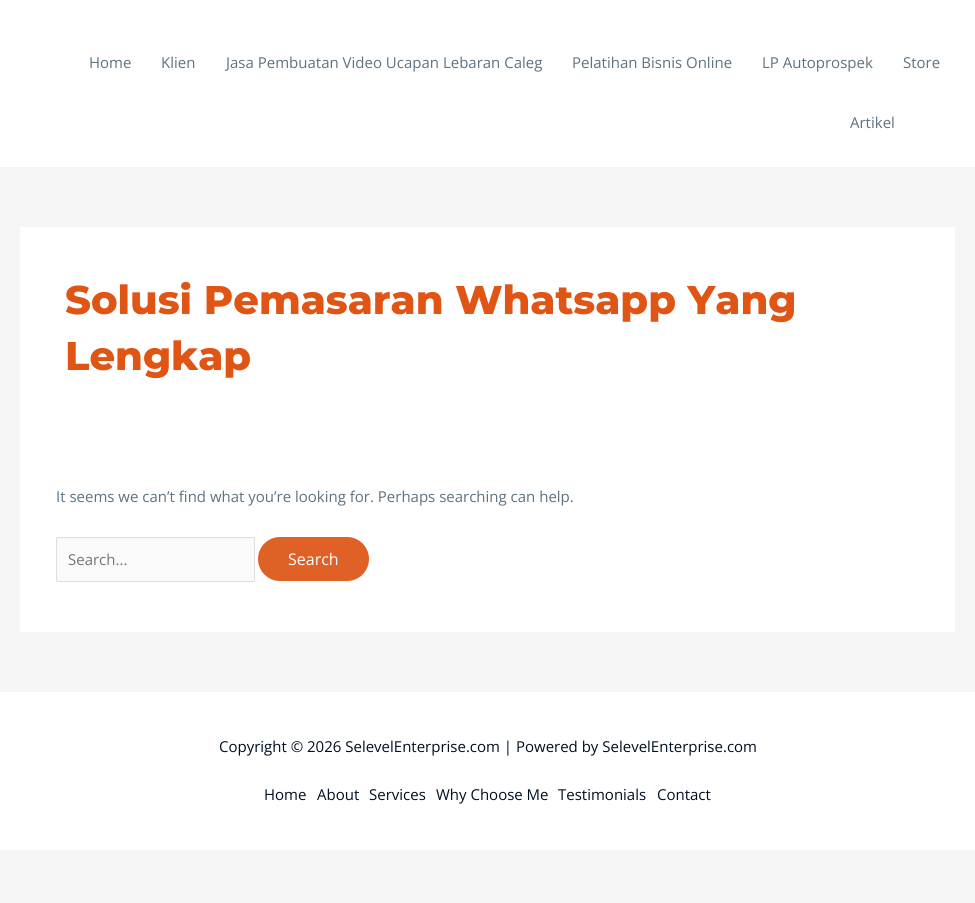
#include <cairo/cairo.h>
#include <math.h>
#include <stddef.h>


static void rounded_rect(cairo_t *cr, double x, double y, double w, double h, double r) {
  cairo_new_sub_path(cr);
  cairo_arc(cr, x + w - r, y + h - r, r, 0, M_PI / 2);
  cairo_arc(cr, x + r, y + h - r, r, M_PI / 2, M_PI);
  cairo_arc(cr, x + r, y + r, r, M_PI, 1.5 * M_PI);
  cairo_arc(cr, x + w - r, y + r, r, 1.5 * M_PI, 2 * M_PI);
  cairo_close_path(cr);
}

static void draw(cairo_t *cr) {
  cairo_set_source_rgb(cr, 245 / 255.0, 245 / 255.0, 245 / 255.0);
  cairo_paint(cr);
  cairo_set_source_rgb(cr, 1, 1, 1);
  cairo_rectangle(cr, 0, 0, 975, 167);
  cairo_fill(cr);
  cairo_rectangle(cr, 20, 227, 935, 405);
  cairo_fill(cr);
  cairo_set_source_rgb(cr, 250 / 255.0, 250 / 255.0, 250 / 255.0);
  rounded_rect(cr, 56.5, 537.5, 198, 44, 1.5);
  cairo_fill_preserve(cr);
  cairo_set_source_rgb(cr, 221 / 255.0, 221 / 255.0, 221 / 255.0);
  cairo_set_line_width(cr, 1);
  cairo_stroke(cr);
  cairo_set_source_rgb(cr, 224 / 255.0, 97 / 255.0, 38 / 255.0);
  rounded_rect(cr, 258, 537, 111, 44, 22);
  cairo_fill(cr);
  cairo_set_source_rgb(cr, 1, 1, 1);
  cairo_rectangle(cr, 0, 692, 975, 158);
  cairo_fill(cr);
  cairo_select_font_face(cr, "Open Sans", CAIRO_FONT_SLANT_NORMAL, CAIRO_FONT_WEIGHT_NORMAL);
  cairo_set_font_size(cr, 15);
  cairo_set_source_rgb(cr, 93 / 255.0, 114 / 255.0, 128 / 255.0);
  cairo_move_to(cr, 89, 68);
  cairo_show_text(cr, "Home");
  cairo_move_to(cr, 161, 68);
  cairo_show_text(cr, "Klien");
  cairo_move_to(cr, 226, 68);
  cairo_show_text(cr, "Jasa Pembuatan Video Ucapan Lebaran Caleg");
  cairo_move_to(cr, 572, 68);
  cairo_show_text(cr, "Pelatihan Bisnis Online");
  cairo_move_to(cr, 762, 68);
  cairo_show_text(cr, "LP Autoprospek");
  cairo_move_to(cr, 903, 68);
  cairo_show_text(cr, "Store");
  cairo_move_to(cr, 850, 128);
  cairo_show_text(cr, "Artikel");
  cairo_select_font_face(cr, "Montserrat Thin", CAIRO_FONT_SLANT_NORMAL, CAIRO_FONT_WEIGHT_NORMAL);
  cairo_set_font_size(cr, 40);
  cairo_set_source_rgb(cr, 224 / 255.0, 84 / 255.0, 20 / 255.0);
  cairo_move_to(cr, 65, 314);
  cairo_show_text(cr, "Solusi Pemasaran Whatsapp Yang");
  cairo_move_to(cr, 65, 370);
  cairo_show_text(cr, "Lengkap");
  cairo_select_font_face(cr, "Open Sans", CAIRO_FONT_SLANT_NORMAL, CAIRO_FONT_WEIGHT_NORMAL);
  cairo_set_font_size(cr, 15);
  cairo_set_source_rgb(cr, 93 / 255.0, 114 / 255.0, 128 / 255.0);
  cairo_move_to(cr, 56, 502);
  cairo_show_text(cr, "It seems we can’t find what you’re looking for. Perhaps searching can help.");
  cairo_set_source_rgb(cr, 117 / 255.0, 117 / 255.0, 117 / 255.0);
  cairo_move_to(cr, 68, 565);
  cairo_show_text(cr, "Search...");
  cairo_set_font_size(cr, 16);
  cairo_set_source_rgb(cr, 1, 1, 1);
  cairo_move_to(cr, 288, 565);
  cairo_show_text(cr, "Search");
  cairo_set_font_size(cr, 15);
  cairo_set_source_rgb(cr, 0, 15 / 255.0, 35 / 255.0);
  cairo_move_to(cr, 219, 752);
  cairo_show_text(cr, "Copyright © 2026 SelevelEnterprise.com | Powered by SelevelEnterprise.com");
  cairo_move_to(cr, 264, 800);
  cairo_show_text(cr, "Home");
  cairo_move_to(cr, 317, 800);
  cairo_show_text(cr, "About");
  cairo_move_to(cr, 369, 800);
  cairo_show_text(cr, "Services");
  cairo_move_to(cr, 436, 800);
  cairo_show_text(cr, "Why Choose Me");
  cairo_move_to(cr, 558, 800);
  cairo_show_text(cr, "Testimonials");
  cairo_move_to(cr, 657, 800);
  cairo_show_text(cr, "Contact");
}

int main(void) {
  cairo_surface_t *surface = cairo_image_surface_create(CAIRO_FORMAT_RGB24, 975, 903);
  cairo_t *cr = cairo_create(surface);
  cairo_font_options_t *options = cairo_font_options_create();
  cairo_font_options_set_hint_metrics(options, CAIRO_HINT_METRICS_OFF);
  cairo_font_options_set_hint_style(options, CAIRO_HINT_STYLE_NONE);
  cairo_set_font_options(cr, options);
  cairo_set_miter_limit(cr, 4);
  draw(cr);
  cairo_surface_write_to_png(surface, "out.png");
  cairo_font_options_destroy(options);
  cairo_destroy(cr);
  cairo_surface_destroy(surface);
  return 0;
}
